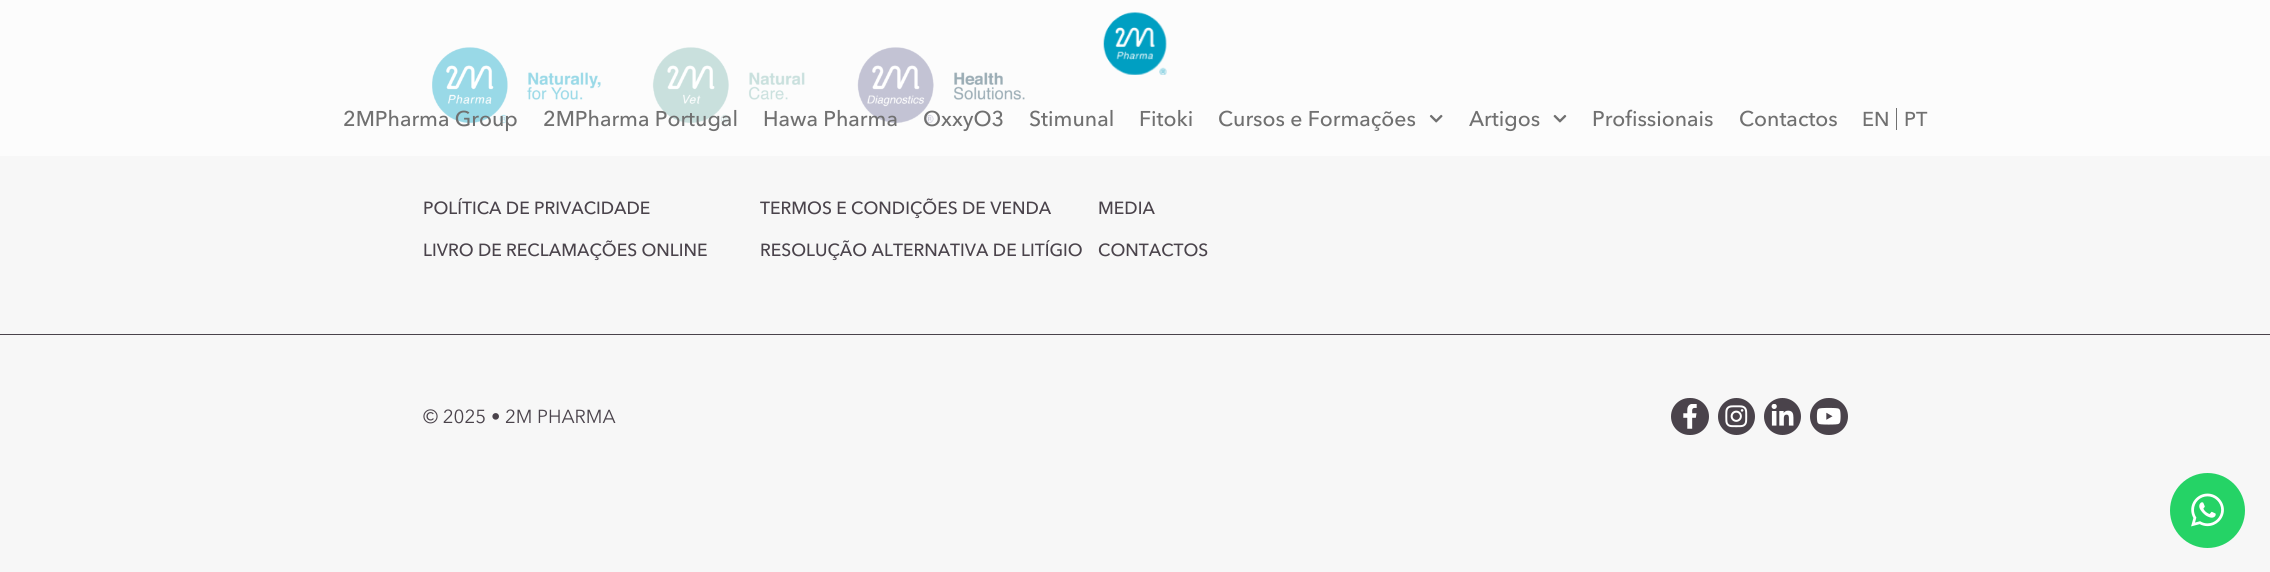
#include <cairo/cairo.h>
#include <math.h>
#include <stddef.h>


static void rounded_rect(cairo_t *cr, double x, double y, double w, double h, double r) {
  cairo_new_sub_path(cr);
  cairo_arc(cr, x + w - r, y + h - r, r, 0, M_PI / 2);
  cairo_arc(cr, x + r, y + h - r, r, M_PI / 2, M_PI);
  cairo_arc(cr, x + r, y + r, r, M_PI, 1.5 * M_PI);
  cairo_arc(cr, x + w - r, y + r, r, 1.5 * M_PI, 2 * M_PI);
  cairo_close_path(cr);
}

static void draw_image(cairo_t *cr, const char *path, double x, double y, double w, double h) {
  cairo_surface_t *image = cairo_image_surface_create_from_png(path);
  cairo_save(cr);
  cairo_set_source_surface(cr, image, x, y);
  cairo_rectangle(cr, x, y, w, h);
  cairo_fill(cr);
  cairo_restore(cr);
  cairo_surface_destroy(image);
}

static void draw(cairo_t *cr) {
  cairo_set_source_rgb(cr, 247 / 255.0, 247 / 255.0, 247 / 255.0);
  cairo_paint(cr);
  cairo_set_source_rgb(cr, 252 / 255.0, 252 / 255.0, 252 / 255.0);
  cairo_rectangle(cr, 0, 0, 2270, 156);
  cairo_fill(cr);
  draw_image(cr, "images/1.png", 1103, 12, 64, 63);
  draw_image(cr, "images/2.png", 1429, 114, 14, 9);
  draw_image(cr, "images/3.png", 1553, 114, 14, 9);
  cairo_set_source_rgb(cr, 112 / 255.0, 112 / 255.0, 112 / 255.0);
  cairo_rectangle(cr, 1896, 108, 1, 22);
  cairo_fill(cr);
  cairo_set_source_rgb(cr, 74 / 255.0, 67 / 255.0, 75 / 255.0);
  cairo_rectangle(cr, 0, 334, 2270, 1);
  cairo_fill(cr);
  draw_image(cr, "images/4.png", 432, 47, 169, 77);
  draw_image(cr, "images/5.png", 652, 47, 153, 77);
  draw_image(cr, "images/6.png", 857, 47, 168, 77);
  rounded_rect(cr, 1671, 398, 38, 37, 18.5);
  cairo_fill(cr);
  draw_image(cr, "images/7.png", 1683, 404, 14, 25);
  cairo_arc(cr, 1736.5, 416.5, 18.5, 0, 2 * M_PI);
  cairo_fill(cr);
  draw_image(cr, "images/8.png", 1725, 405, 23, 23);
  cairo_arc(cr, 1782.5, 416.5, 18.5, 0, 2 * M_PI);
  cairo_fill(cr);
  draw_image(cr, "images/9.png", 1771, 404, 23, 22);
  rounded_rect(cr, 1810, 398, 38, 37, 18.5);
  cairo_fill(cr);
  draw_image(cr, "images/10.png", 1816, 407, 25, 18);
  cairo_set_source_rgb(cr, 37 / 255.0, 211 / 255.0, 102 / 255.0);
  cairo_arc(cr, 2207.5, 510.5, 37.5, 0, 2 * M_PI);
  cairo_fill(cr);
  draw_image(cr, "images/11.png", 2191, 493, 33, 34);
  cairo_select_font_face(cr, "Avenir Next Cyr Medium", CAIRO_FONT_SLANT_NORMAL, CAIRO_FONT_WEIGHT_NORMAL);
  cairo_set_font_size(cr, 21.25);
  cairo_set_source_rgb(cr, 112 / 255.0, 112 / 255.0, 112 / 255.0);
  cairo_move_to(cr, 343, 126);
  cairo_show_text(cr, "2MPharma Group");
  cairo_move_to(cr, 543, 126);
  cairo_show_text(cr, "2MPharma Portugal");
  cairo_move_to(cr, 763, 126);
  cairo_show_text(cr, "Hawa Pharma");
  cairo_move_to(cr, 923, 126);
  cairo_show_text(cr, "OxxyO3");
  cairo_move_to(cr, 1029, 126);
  cairo_show_text(cr, "Stimunal");
  cairo_move_to(cr, 1139, 126);
  cairo_show_text(cr, "Fitoki");
  cairo_move_to(cr, 1218, 126);
  cairo_show_text(cr, "Cursos e Formações");
  cairo_move_to(cr, 1469, 126);
  cairo_show_text(cr, "Artigos");
  cairo_move_to(cr, 1592, 126);
  cairo_show_text(cr, "Profissionais");
  cairo_move_to(cr, 1739, 126);
  cairo_show_text(cr, "Contactos");
  cairo_set_font_size(cr, 20);
  cairo_move_to(cr, 1862, 126);
  cairo_show_text(cr, "EN");
  cairo_move_to(cr, 1904, 126);
  cairo_show_text(cr, "PT");
  cairo_set_font_size(cr, 17.5);
  cairo_set_source_rgb(cr, 74 / 255.0, 67 / 255.0, 75 / 255.0);
  cairo_move_to(cr, 423, 214);
  cairo_show_text(cr, "POLÍTICA DE PRIVACIDADE");
  cairo_move_to(cr, 760, 214);
  cairo_show_text(cr, "TERMOS E CONDIÇÕES DE VENDA");
  cairo_move_to(cr, 1098, 214);
  cairo_show_text(cr, "MEDIA");
  cairo_move_to(cr, 423, 256);
  cairo_show_text(cr, "LIVRO DE RECLAMAÇÕES ONLINE");
  cairo_move_to(cr, 760, 256);
  cairo_show_text(cr, "RESOLUÇÃO ALTERNATIVA DE LITÍGIO");
  cairo_move_to(cr, 1098, 256);
  cairo_show_text(cr, "CONTACTOS");
  cairo_select_font_face(cr, "Avenir Next Cyr", CAIRO_FONT_SLANT_NORMAL, CAIRO_FONT_WEIGHT_NORMAL);
  cairo_set_font_size(cr, 18.75);
  cairo_move_to(cr, 423, 423);
  cairo_show_text(cr, "© 2025 • 2M PHARMA");
}

int main(void) {
  cairo_surface_t *surface = cairo_image_surface_create(CAIRO_FORMAT_RGB24, 2270, 572);
  cairo_t *cr = cairo_create(surface);
  cairo_font_options_t *options = cairo_font_options_create();
  cairo_font_options_set_hint_metrics(options, CAIRO_HINT_METRICS_OFF);
  cairo_font_options_set_hint_style(options, CAIRO_HINT_STYLE_NONE);
  cairo_set_font_options(cr, options);
  cairo_set_miter_limit(cr, 4);
  draw(cr);
  cairo_surface_write_to_png(surface, "out.png");
  cairo_font_options_destroy(options);
  cairo_destroy(cr);
  cairo_surface_destroy(surface);
  return 0;
}
